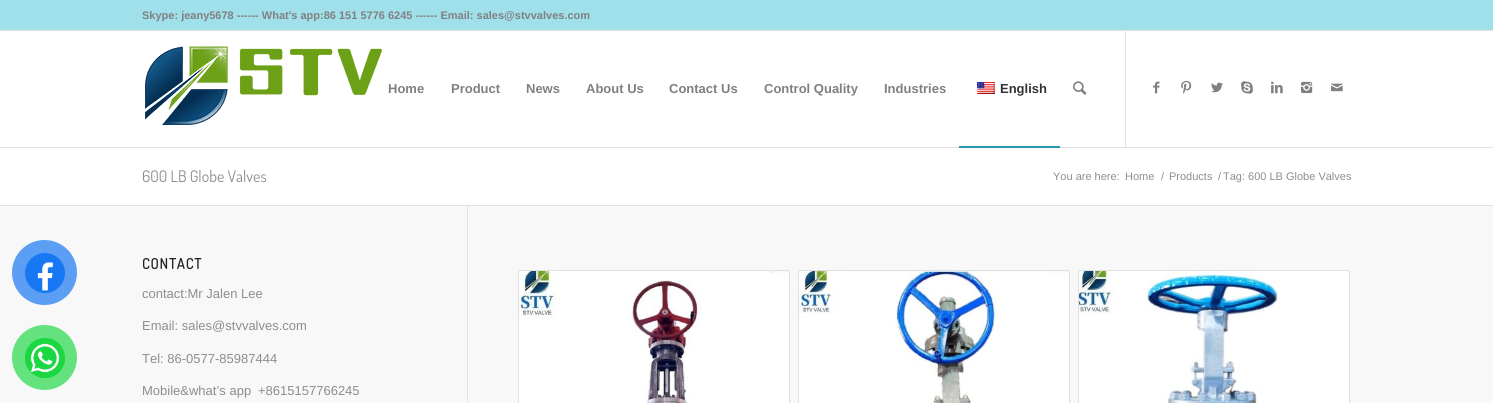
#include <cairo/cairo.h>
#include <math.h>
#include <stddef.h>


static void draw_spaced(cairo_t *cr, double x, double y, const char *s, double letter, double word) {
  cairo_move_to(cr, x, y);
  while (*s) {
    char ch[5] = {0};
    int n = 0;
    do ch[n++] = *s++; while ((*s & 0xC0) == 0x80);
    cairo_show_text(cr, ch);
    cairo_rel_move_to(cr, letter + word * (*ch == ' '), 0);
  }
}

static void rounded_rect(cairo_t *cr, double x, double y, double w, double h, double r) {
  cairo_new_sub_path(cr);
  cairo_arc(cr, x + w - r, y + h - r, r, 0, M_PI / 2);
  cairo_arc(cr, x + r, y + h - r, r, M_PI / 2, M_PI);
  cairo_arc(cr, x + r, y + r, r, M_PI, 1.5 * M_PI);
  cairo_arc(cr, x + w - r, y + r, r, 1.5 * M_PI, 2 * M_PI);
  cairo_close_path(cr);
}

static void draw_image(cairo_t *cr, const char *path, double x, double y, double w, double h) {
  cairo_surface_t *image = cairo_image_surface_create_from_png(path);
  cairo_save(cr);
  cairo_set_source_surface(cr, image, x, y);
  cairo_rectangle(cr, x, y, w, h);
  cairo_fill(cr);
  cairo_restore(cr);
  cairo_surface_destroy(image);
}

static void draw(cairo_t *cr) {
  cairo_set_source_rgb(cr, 1, 1, 1);
  cairo_paint(cr);
  cairo_set_source_rgb(cr, 248 / 255.0, 248 / 255.0, 248 / 255.0);
  cairo_rectangle(cr, 0, 206, 1493, 197);
  cairo_fill(cr);
  cairo_set_source_rgb(cr, 91 / 255.0, 158 / 255.0, 244 / 255.0);
  cairo_arc(cr, 44.5, 272.5, 32.5, 0, 2 * M_PI);
  cairo_fill(cr);
  cairo_set_source_rgb(cr, 24 / 255.0, 119 / 255.0, 242 / 255.0);
  cairo_arc(cr, 45, 273, 20, 0, 2 * M_PI);
  cairo_fill(cr);
  draw_image(cr, "images/1.png", 37, 262, 17, 29);
  cairo_set_source_rgb(cr, 99 / 255.0, 226 / 255.0, 125 / 255.0);
  cairo_arc(cr, 44.5, 357.5, 32.5, 0, 2 * M_PI);
  cairo_fill(cr);
  cairo_set_source_rgb(cr, 28 / 255.0, 215 / 255.0, 65 / 255.0);
  cairo_arc(cr, 45, 358, 20, 0, 2 * M_PI);
  cairo_fill(cr);
  draw_image(cr, "images/2.png", 25, 338, 40, 40);
  cairo_set_source_rgb(cr, 159 / 255.0, 224 / 255.0, 235 / 255.0);
  cairo_rectangle(cr, 0, 0, 1493, 30);
  cairo_fill(cr);
  cairo_set_source_rgb(cr, 225 / 255.0, 225 / 255.0, 225 / 255.0);
  cairo_rectangle(cr, 0, 30, 1493, 1);
  cairo_fill(cr);
  cairo_rectangle(cr, 0, 147, 1493, 1);
  cairo_fill(cr);
  draw_image(cr, "images/3.png", 145, 46, 237, 79);
  cairo_rectangle(cr, 1125, 31, 1, 116);
  cairo_fill(cr);
  draw_image(cr, "images/4.png", 977, 82, 18, 12);
  cairo_set_source_rgb(cr, 41 / 255.0, 151 / 255.0, 171 / 255.0);
  cairo_rectangle(cr, 959, 146, 101, 2);
  cairo_fill(cr);
  draw_image(cr, "images/5.png", 1073, 81, 14, 14);
  draw_image(cr, "images/6.png", 1153, 81, 7, 13);
  draw_image(cr, "images/7.png", 1181, 80, 11, 14);
  draw_image(cr, "images/8.png", 1211, 82, 12, 11);
  draw_image(cr, "images/9.png", 1241, 81, 12, 13);
  draw_image(cr, "images/10.png", 1271, 81, 12, 13);
  draw_image(cr, "images/11.png", 1301, 81, 12, 13);
  draw_image(cr, "images/12.png", 1331, 83, 12, 9);
  cairo_set_source_rgb(cr, 225 / 255.0, 225 / 255.0, 225 / 255.0);
  cairo_rectangle(cr, 0, 205, 1493, 1);
  cairo_fill(cr);
  cairo_rectangle(cr, 467, 206, 1, 197);
  cairo_fill(cr);
  rounded_rect(cr, 518.5, 270.5, 271, 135, 1.5);
  cairo_set_line_width(cr, 1);
  cairo_stroke(cr);
  draw_image(cr, "images/13.png", 519, 271, 270, 132);
  rounded_rect(cr, 798.5, 270.5, 271, 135, 1.5);
  cairo_stroke(cr);
  draw_image(cr, "images/14.png", 799, 271, 270, 132);
  rounded_rect(cr, 1078.5, 270.5, 271, 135, 1.5);
  cairo_stroke(cr);
  draw_image(cr, "images/15.png", 1079, 271, 270, 132);
  cairo_select_font_face(cr, "Liberation Sans", CAIRO_FONT_SLANT_NORMAL, CAIRO_FONT_WEIGHT_BOLD);
  cairo_set_font_size(cr, 11);
  cairo_set_source_rgb(cr, 128 / 255.0, 128 / 255.0, 128 / 255.0);
  cairo_move_to(cr, 142, 19);
  cairo_show_text(cr, "Skype: jeany5678 ------ What's app:86 151 5776 6245 ------ Email: sales@stvvalves.com");
  cairo_set_font_size(cr, 13);
  cairo_move_to(cr, 388, 93);
  cairo_show_text(cr, "Home");
  cairo_move_to(cr, 451, 93);
  cairo_show_text(cr, "Product");
  cairo_move_to(cr, 526, 93);
  cairo_show_text(cr, "News");
  cairo_move_to(cr, 586, 93);
  cairo_show_text(cr, "About Us");
  cairo_move_to(cr, 669, 93);
  cairo_show_text(cr, "Contact Us");
  cairo_move_to(cr, 764, 93);
  cairo_show_text(cr, "Control Quality");
  cairo_move_to(cr, 884, 93);
  cairo_show_text(cr, "Industries");
  cairo_set_source_rgb(cr, 51 / 255.0, 51 / 255.0, 51 / 255.0);
  cairo_move_to(cr, 1000, 93);
  cairo_show_text(cr, "English");
  cairo_select_font_face(cr, "Dosis", CAIRO_FONT_SLANT_NORMAL, CAIRO_FONT_WEIGHT_NORMAL);
  cairo_set_font_size(cr, 16);
  cairo_set_source_rgb(cr, 141 / 255.0, 141 / 255.0, 141 / 255.0);
  cairo_move_to(cr, 142, 182);
  cairo_show_text(cr, "600 LB Globe Valves");
  cairo_select_font_face(cr, "Liberation Sans", CAIRO_FONT_SLANT_NORMAL, CAIRO_FONT_WEIGHT_NORMAL);
  cairo_set_font_size(cr, 11);
  cairo_move_to(cr, 1053, 180);
  cairo_show_text(cr, "You are here:");
  cairo_move_to(cr, 1125, 180);
  cairo_show_text(cr, "Home");
  cairo_move_to(cr, 1161, 180);
  cairo_show_text(cr, "/");
  cairo_move_to(cr, 1169, 180);
  cairo_show_text(cr, "Products");
  cairo_move_to(cr, 1218, 180);
  cairo_show_text(cr, "/");
  cairo_move_to(cr, 1223, 180);
  cairo_show_text(cr, "Tag: 600 LB Globe Valves");
  cairo_select_font_face(cr, "Dosis", CAIRO_FONT_SLANT_NORMAL, CAIRO_FONT_WEIGHT_BOLD);
  cairo_set_font_size(cr, 14.5);
  cairo_set_source_rgb(cr, 34 / 255.0, 34 / 255.0, 34 / 255.0);
  draw_spaced(cr, 142, 269, "CONTACT", 1, 0);
  cairo_select_font_face(cr, "Liberation Sans", CAIRO_FONT_SLANT_NORMAL, CAIRO_FONT_WEIGHT_NORMAL);
  cairo_set_font_size(cr, 13);
  cairo_set_source_rgb(cr, 141 / 255.0, 141 / 255.0, 141 / 255.0);
  cairo_move_to(cr, 142, 298);
  cairo_show_text(cr, "contact:Mr Jalen Lee");
  cairo_move_to(cr, 142, 330);
  cairo_show_text(cr, "Email: sales@stvvalves.com");
  cairo_move_to(cr, 142, 363);
  cairo_show_text(cr, "Tel: 86-0577-85987444");
  cairo_move_to(cr, 142, 395);
  cairo_show_text(cr, "Mobile&what’s app");
  cairo_move_to(cr, 258, 395);
  cairo_show_text(cr, "+8615157766245");
}

int main(void) {
  cairo_surface_t *surface = cairo_image_surface_create(CAIRO_FORMAT_RGB24, 1493, 403);
  cairo_t *cr = cairo_create(surface);
  cairo_font_options_t *options = cairo_font_options_create();
  cairo_font_options_set_hint_metrics(options, CAIRO_HINT_METRICS_OFF);
  cairo_font_options_set_hint_style(options, CAIRO_HINT_STYLE_NONE);
  cairo_set_font_options(cr, options);
  cairo_set_miter_limit(cr, 4);
  draw(cr);
  cairo_surface_write_to_png(surface, "out.png");
  cairo_font_options_destroy(options);
  cairo_destroy(cr);
  cairo_surface_destroy(surface);
  return 0;
}
